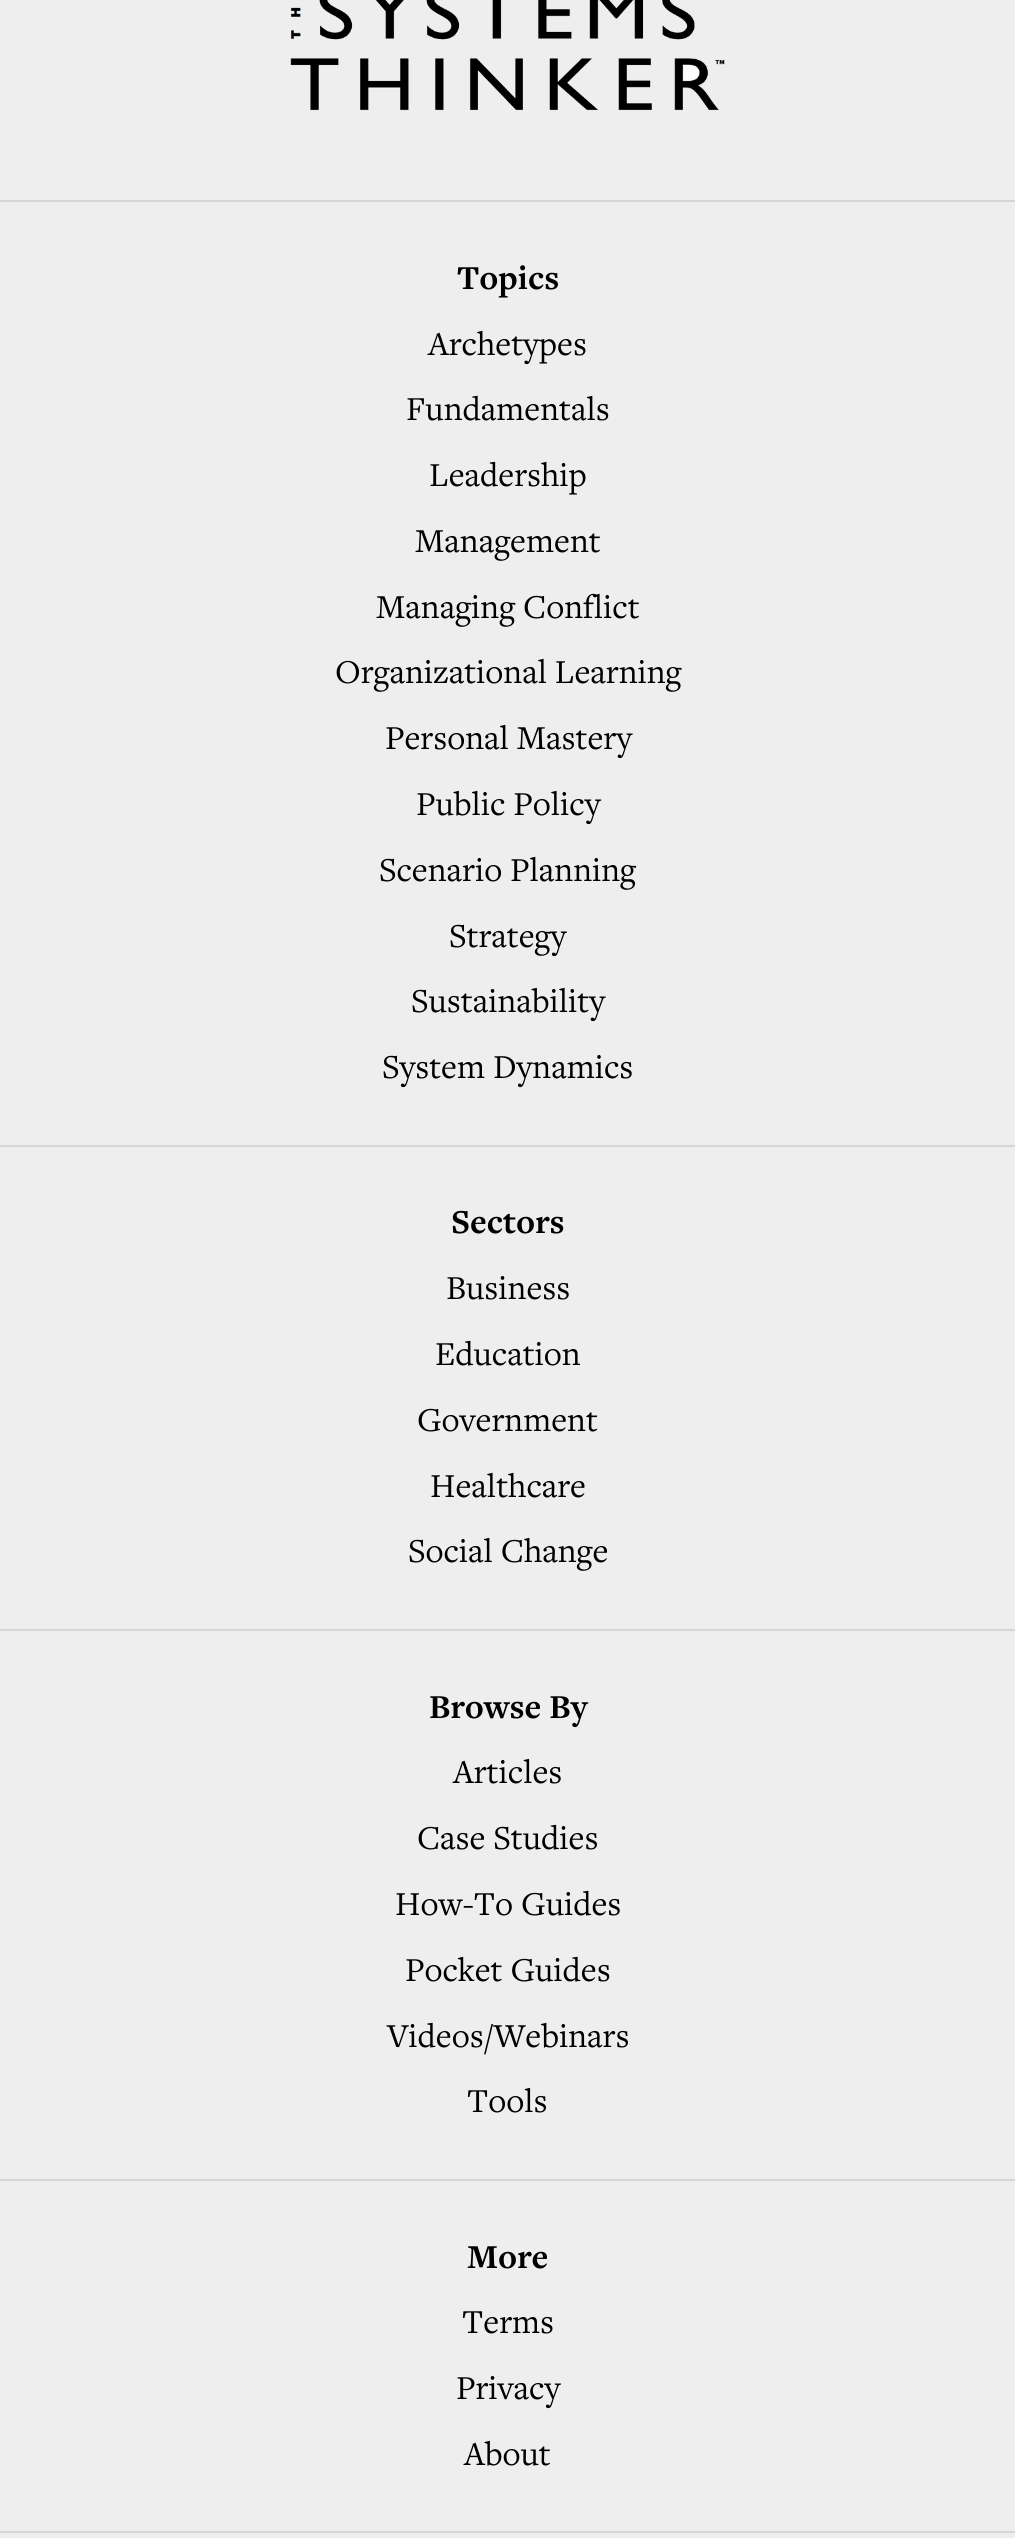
#include <cairo/cairo.h>
#include <math.h>
#include <stddef.h>


static void draw_image(cairo_t *cr, const char *path, double x, double y, double w, double h) {
  cairo_surface_t *image = cairo_image_surface_create_from_png(path);
  cairo_save(cr);
  cairo_set_source_surface(cr, image, x, y);
  cairo_rectangle(cr, x, y, w, h);
  cairo_fill(cr);
  cairo_restore(cr);
  cairo_surface_destroy(image);
}

static void draw(cairo_t *cr) {
  cairo_set_source_rgb(cr, 238 / 255.0, 238 / 255.0, 238 / 255.0);
  cairo_paint(cr);
  cairo_set_source_rgb(cr, 214 / 255.0, 214 / 255.0, 214 / 255.0);
  cairo_rectangle(cr, 0, 200, 1015, 2);
  cairo_fill(cr);
  draw_image(cr, "images/1.png", 290, 0, 435, 111);
  cairo_rectangle(cr, 0, 1145, 1015, 2);
  cairo_fill(cr);
  cairo_rectangle(cr, 0, 1629, 1015, 2);
  cairo_fill(cr);
  cairo_rectangle(cr, 0, 2179, 1015, 2);
  cairo_fill(cr);
  cairo_rectangle(cr, 0, 2531, 1015, 2);
  cairo_fill(cr);
  cairo_select_font_face(cr, "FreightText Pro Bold", CAIRO_FONT_SLANT_NORMAL, CAIRO_FONT_WEIGHT_BOLD);
  cairo_set_font_size(cr, 34.75);
  cairo_set_source_rgb(cr, 0, 0, 0);
  cairo_move_to(cr, 457, 289);
  cairo_show_text(cr, "Topics");
  cairo_select_font_face(cr, "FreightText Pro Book", CAIRO_FONT_SLANT_NORMAL, CAIRO_FONT_WEIGHT_NORMAL);
  cairo_move_to(cr, 428, 355);
  cairo_show_text(cr, "Archetypes");
  cairo_move_to(cr, 406, 420);
  cairo_show_text(cr, "Fundamentals");
  cairo_move_to(cr, 429, 486);
  cairo_show_text(cr, "Leadership");
  cairo_move_to(cr, 415, 552);
  cairo_show_text(cr, "Management");
  cairo_move_to(cr, 376, 618);
  cairo_show_text(cr, "Managing Conflict");
  cairo_move_to(cr, 335, 683);
  cairo_show_text(cr, "Organizational Learning");
  cairo_move_to(cr, 385, 749);
  cairo_show_text(cr, "Personal Mastery");
  cairo_move_to(cr, 416, 815);
  cairo_show_text(cr, "Public Policy");
  cairo_move_to(cr, 379, 881);
  cairo_show_text(cr, "Scenario Planning");
  cairo_move_to(cr, 449, 947);
  cairo_show_text(cr, "Strategy");
  cairo_move_to(cr, 411, 1012);
  cairo_show_text(cr, "Sustainability");
  cairo_move_to(cr, 382, 1078);
  cairo_show_text(cr, "System Dynamics");
  cairo_select_font_face(cr, "FreightText Pro Bold", CAIRO_FONT_SLANT_NORMAL, CAIRO_FONT_WEIGHT_BOLD);
  cairo_move_to(cr, 451, 1233);
  cairo_show_text(cr, "Sectors");
  cairo_select_font_face(cr, "FreightText Pro Book", CAIRO_FONT_SLANT_NORMAL, CAIRO_FONT_WEIGHT_NORMAL);
  cairo_move_to(cr, 446, 1299);
  cairo_show_text(cr, "Business");
  cairo_move_to(cr, 435, 1365);
  cairo_show_text(cr, "Education");
  cairo_move_to(cr, 417, 1431);
  cairo_show_text(cr, "Government");
  cairo_move_to(cr, 430, 1497);
  cairo_show_text(cr, "Healthcare");
  cairo_move_to(cr, 408, 1562);
  cairo_show_text(cr, "Social Change");
  cairo_select_font_face(cr, "FreightText Pro Bold", CAIRO_FONT_SLANT_NORMAL, CAIRO_FONT_WEIGHT_BOLD);
  cairo_move_to(cr, 429, 1718);
  cairo_show_text(cr, "Browse By");
  cairo_select_font_face(cr, "FreightText Pro Book", CAIRO_FONT_SLANT_NORMAL, CAIRO_FONT_WEIGHT_NORMAL);
  cairo_move_to(cr, 453, 1783);
  cairo_show_text(cr, "Articles");
  cairo_move_to(cr, 417, 1849);
  cairo_show_text(cr, "Case Studies");
  cairo_move_to(cr, 395, 1915);
  cairo_show_text(cr, "How-To Guides");
  cairo_move_to(cr, 405, 1981);
  cairo_show_text(cr, "Pocket Guides");
  cairo_move_to(cr, 387, 2047);
  cairo_show_text(cr, "Videos/Webinars");
  cairo_move_to(cr, 467, 2112);
  cairo_show_text(cr, "Tools");
  cairo_select_font_face(cr, "FreightText Pro Bold", CAIRO_FONT_SLANT_NORMAL, CAIRO_FONT_WEIGHT_BOLD);
  cairo_move_to(cr, 467, 2268);
  cairo_show_text(cr, "More");
  cairo_select_font_face(cr, "FreightText Pro Book", CAIRO_FONT_SLANT_NORMAL, CAIRO_FONT_WEIGHT_NORMAL);
  cairo_move_to(cr, 462, 2333);
  cairo_show_text(cr, "Terms");
  cairo_move_to(cr, 456, 2399);
  cairo_show_text(cr, "Privacy");
  cairo_move_to(cr, 464, 2465);
  cairo_show_text(cr, "About");
}

int main(void) {
  cairo_surface_t *surface = cairo_image_surface_create(CAIRO_FORMAT_RGB24, 1015, 2538);
  cairo_t *cr = cairo_create(surface);
  cairo_font_options_t *options = cairo_font_options_create();
  cairo_font_options_set_hint_metrics(options, CAIRO_HINT_METRICS_OFF);
  cairo_font_options_set_hint_style(options, CAIRO_HINT_STYLE_NONE);
  cairo_set_font_options(cr, options);
  cairo_set_miter_limit(cr, 4);
  draw(cr);
  cairo_surface_write_to_png(surface, "out.png");
  cairo_font_options_destroy(options);
  cairo_destroy(cr);
  cairo_surface_destroy(surface);
  return 0;
}
